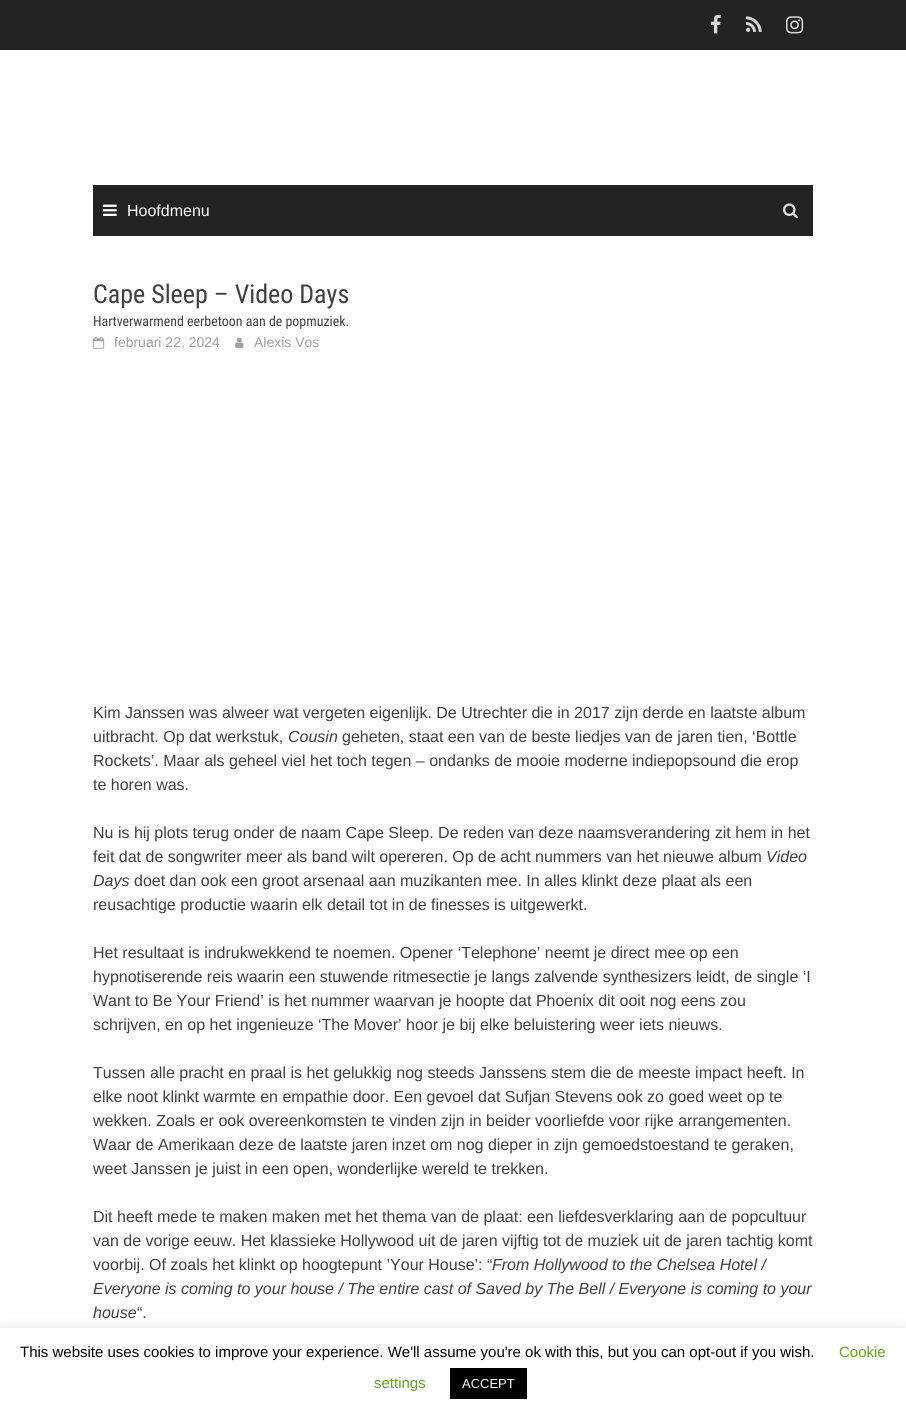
#include <cairo/cairo.h>
#include <math.h>
#include <stddef.h>


static void rounded_rect(cairo_t *cr, double x, double y, double w, double h, double r) {
  cairo_new_sub_path(cr);
  cairo_arc(cr, x + w - r, y + h - r, r, 0, M_PI / 2);
  cairo_arc(cr, x + r, y + h - r, r, M_PI / 2, M_PI);
  cairo_arc(cr, x + r, y + r, r, M_PI, 1.5 * M_PI);
  cairo_arc(cr, x + w - r, y + r, r, 1.5 * M_PI, 2 * M_PI);
  cairo_close_path(cr);
}

static void draw_shadow(cairo_t *cr, double x, double y, double w, double h, double r, double blur, double alpha) {
  cairo_push_group_with_content(cr, CAIRO_CONTENT_ALPHA);
  cairo_set_operator(cr, CAIRO_OPERATOR_SOURCE);
  for (int i = 15; i >= -15 && fmin(w, h) + blur * i / 3 > 0; i -= 2) {
    double e = blur * i / 6;
    cairo_set_source_rgba(cr, 0, 0, 0, alpha * erfc((i - 1) / 8.5) / 2);
    rounded_rect(cr, x - e, y - e, w + 2 * e, h + 2 * e, fmax(0, fmin(r + e + blur * .6, fmin(w, h) / 2 + e)));
    cairo_fill(cr);
  }
  cairo_pattern_t *soft = cairo_pop_group(cr);
  cairo_mask(cr, soft);
  cairo_pattern_destroy(soft);
}

static void draw_image(cairo_t *cr, const char *path, double x, double y, double w, double h) {
  cairo_surface_t *image = cairo_image_surface_create_from_png(path);
  cairo_save(cr);
  cairo_set_source_surface(cr, image, x, y);
  cairo_rectangle(cr, x, y, w, h);
  cairo_fill(cr);
  cairo_restore(cr);
  cairo_surface_destroy(image);
}

static void draw(cairo_t *cr) {
  cairo_set_source_rgb(cr, 1, 1, 1);
  cairo_paint(cr);
  cairo_set_source_rgb(cr, 35 / 255.0, 35 / 255.0, 35 / 255.0);
  cairo_rectangle(cr, 0, 0, 906, 50);
  cairo_fill(cr);
  draw_image(cr, "images/1.png", 711, 14, 10, 20);
  draw_image(cr, "images/2.png", 746, 16, 16, 16);
  draw_image(cr, "images/3.png", 786, 16, 18, 18);
  cairo_rectangle(cr, 93, 185, 720, 51);
  cairo_fill(cr);
  draw_image(cr, "images/4.png", 103, 204, 14, 12);
  draw_image(cr, "images/5.png", 783, 203, 15, 16);
  draw_image(cr, "images/6.png", 93, 336, 12, 13);
  draw_image(cr, "images/7.png", 235, 337, 9, 11);
  cairo_set_source_rgb(cr, 172 / 255.0, 171 / 255.0, 171 / 255.0);
  draw_shadow(cr, 0, 1327, 906, 88, 0, 5, 0.3);
  cairo_set_source_rgb(cr, 1, 1, 1);
  cairo_rectangle(cr, 0, 1328, 906, 88);
  cairo_fill(cr);
  cairo_set_source_rgb(cr, 0, 0, 0);
  cairo_rectangle(cr, 450, 1368, 77, 31);
  cairo_fill(cr);
  cairo_select_font_face(cr, "Liberation Sans", CAIRO_FONT_SLANT_NORMAL, CAIRO_FONT_WEIGHT_NORMAL);
  cairo_set_font_size(cr, 16);
  cairo_set_source_rgb(cr, 1, 1, 1);
  cairo_move_to(cr, 127, 216);
  cairo_show_text(cr, "Hoofdmenu");
  cairo_select_font_face(cr, "Roboto Condensed", CAIRO_FONT_SLANT_NORMAL, CAIRO_FONT_WEIGHT_NORMAL);
  cairo_set_font_size(cr, 26);
  cairo_set_source_rgb(cr, 64 / 255.0, 64 / 255.0, 64 / 255.0);
  cairo_move_to(cr, 93, 303);
  cairo_show_text(cr, "Cape Sleep – Video Days");
  cairo_set_font_size(cr, 13.9);
  cairo_move_to(cr, 93, 326);
  cairo_show_text(cr, "Hartverwarmend eerbetoon aan de popmuziek.");
  cairo_select_font_face(cr, "Liberation Sans", CAIRO_FONT_SLANT_NORMAL, CAIRO_FONT_WEIGHT_NORMAL);
  cairo_set_font_size(cr, 14);
  cairo_set_source_rgb(cr, 159 / 255.0, 159 / 255.0, 159 / 255.0);
  cairo_move_to(cr, 114, 347);
  cairo_show_text(cr, "februari 22, 2024");
  cairo_move_to(cr, 254, 347);
  cairo_show_text(cr, "Alexis Vos");
  cairo_set_font_size(cr, 16);
  cairo_set_source_rgb(cr, 64 / 255.0, 64 / 255.0, 64 / 255.0);
  cairo_move_to(cr, 93, 718);
  cairo_show_text(cr, "Kim Janssen was alweer wat vergeten eigenlijk. De Utrechter die in 2017 zijn derde en laatste album");
  cairo_move_to(cr, 93, 742);
  cairo_show_text(cr, "uitbracht. Op dat werkstuk,");
  cairo_select_font_face(cr, "Liberation Sans", CAIRO_FONT_SLANT_ITALIC, CAIRO_FONT_WEIGHT_NORMAL);
  cairo_move_to(cr, 288, 742);
  cairo_show_text(cr, "Cousin");
  cairo_select_font_face(cr, "Liberation Sans", CAIRO_FONT_SLANT_NORMAL, CAIRO_FONT_WEIGHT_NORMAL);
  cairo_move_to(cr, 342, 742);
  cairo_show_text(cr, "geheten, staat een van de beste liedjes van de jaren tien, ‘Bottle");
  cairo_move_to(cr, 93, 766);
  cairo_show_text(cr, "Rockets’. Maar als geheel viel het toch tegen – ondanks de mooie moderne indiepopsound die erop");
  cairo_move_to(cr, 93, 790);
  cairo_show_text(cr, "te horen was.");
  cairo_move_to(cr, 93, 838);
  cairo_show_text(cr, "Nu is hij plots terug onder de naam Cape Sleep. De reden van deze naamsverandering zit hem in het");
  cairo_move_to(cr, 93, 862);
  cairo_show_text(cr, "feit dat de songwriter meer als band wilt opereren. Op de acht nummers van het nieuwe album");
  cairo_select_font_face(cr, "Liberation Sans", CAIRO_FONT_SLANT_ITALIC, CAIRO_FONT_WEIGHT_NORMAL);
  cairo_move_to(cr, 766, 862);
  cairo_show_text(cr, "Video");
  cairo_move_to(cr, 93, 886);
  cairo_show_text(cr, "Days");
  cairo_select_font_face(cr, "Liberation Sans", CAIRO_FONT_SLANT_NORMAL, CAIRO_FONT_WEIGHT_NORMAL);
  cairo_move_to(cr, 134, 886);
  cairo_show_text(cr, "doet dan ook een groot arsenaal aan muzikanten mee. In alles klinkt deze plaat als een");
  cairo_move_to(cr, 93, 910);
  cairo_show_text(cr, "reusachtige productie waarin elk detail tot in de finesses is uitgewerkt.");
  cairo_move_to(cr, 93, 958);
  cairo_show_text(cr, "Het resultaat is indrukwekkend te noemen. Opener ‘Telephone’ neemt je direct mee op een");
  cairo_move_to(cr, 93, 982);
  cairo_show_text(cr, "hypnotiserende reis waarin een stuwende ritmesectie je langs zalvende synthesizers leidt, de single ‘I");
  cairo_move_to(cr, 93, 1006);
  cairo_show_text(cr, "Want to Be Your Friend’ is het nummer waarvan je hoopte dat Phoenix dit ooit nog eens zou");
  cairo_move_to(cr, 93, 1030);
  cairo_show_text(cr, "schrijven, en op het ingenieuze ‘The Mover’ hoor je bij elke beluistering weer iets nieuws.");
  cairo_move_to(cr, 93, 1078);
  cairo_show_text(cr, "Tussen alle pracht en praal is het gelukkig nog steeds Janssens stem die de meeste impact heeft. In");
  cairo_move_to(cr, 93, 1102);
  cairo_show_text(cr, "elke noot klinkt warmte en empathie door. Een gevoel dat Sufjan Stevens ook zo goed weet op te");
  cairo_move_to(cr, 93, 1126);
  cairo_show_text(cr, "wekken. Zoals er ook overeenkomsten te vinden zijn in beider voorliefde voor rijke arrangementen.");
  cairo_move_to(cr, 93, 1150);
  cairo_show_text(cr, "Waar de Amerikaan deze de laatste jaren inzet om nog dieper in zijn gemoedstoestand te geraken,");
  cairo_move_to(cr, 93, 1174);
  cairo_show_text(cr, "weet Janssen je juist in een open, wonderlijke wereld te trekken.");
  cairo_move_to(cr, 93, 1222);
  cairo_show_text(cr, "Dit heeft mede te maken maken met het thema van de plaat: een liefdesverklaring aan de popcultuur");
  cairo_move_to(cr, 93, 1246);
  cairo_show_text(cr, "van de vorige eeuw. Het klassieke Hollywood uit de jaren vijftig tot de muziek uit de jaren tachtig komt");
  cairo_move_to(cr, 93, 1270);
  cairo_show_text(cr, "voorbij. Of zoals het klinkt op hoogtepunt ’Your House’: “");
  cairo_select_font_face(cr, "Liberation Sans", CAIRO_FONT_SLANT_ITALIC, CAIRO_FONT_WEIGHT_NORMAL);
  cairo_move_to(cr, 492, 1270);
  cairo_show_text(cr, "From Hollywood to the Chelsea Hotel /");
  cairo_move_to(cr, 93, 1294);
  cairo_show_text(cr, "Everyone is coming to your house / The entire cast of Saved by The Bell / Everyone is coming to your");
  cairo_move_to(cr, 93, 1318);
  cairo_show_text(cr, "house");
  cairo_select_font_face(cr, "Liberation Sans", CAIRO_FONT_SLANT_NORMAL, CAIRO_FONT_WEIGHT_NORMAL);
  cairo_move_to(cr, 137, 1318);
  cairo_show_text(cr, "“.");
  cairo_set_font_size(cr, 15);
  cairo_set_source_rgb(cr, 0, 0, 0);
  cairo_move_to(cr, 20, 1357);
  cairo_show_text(cr, "This website uses cookies to improve your experience. We'll assume you're ok with this, but you can opt-out if you wish.");
  cairo_set_source_rgb(cr, 98 / 255.0, 163 / 255.0, 41 / 255.0);
  cairo_move_to(cr, 839, 1357);
  cairo_show_text(cr, "Cookie");
  cairo_move_to(cr, 374, 1388);
  cairo_show_text(cr, "settings");
  cairo_set_font_size(cr, 13);
  cairo_set_source_rgb(cr, 1, 1, 1);
  cairo_move_to(cr, 462, 1388);
  cairo_show_text(cr, "ACCEPT");
}

int main(void) {
  cairo_surface_t *surface = cairo_image_surface_create(CAIRO_FORMAT_RGB24, 906, 1416);
  cairo_t *cr = cairo_create(surface);
  cairo_font_options_t *options = cairo_font_options_create();
  cairo_font_options_set_hint_metrics(options, CAIRO_HINT_METRICS_OFF);
  cairo_font_options_set_hint_style(options, CAIRO_HINT_STYLE_NONE);
  cairo_set_font_options(cr, options);
  cairo_set_miter_limit(cr, 4);
  draw(cr);
  cairo_surface_write_to_png(surface, "out.png");
  cairo_font_options_destroy(options);
  cairo_destroy(cr);
  cairo_surface_destroy(surface);
  return 0;
}
